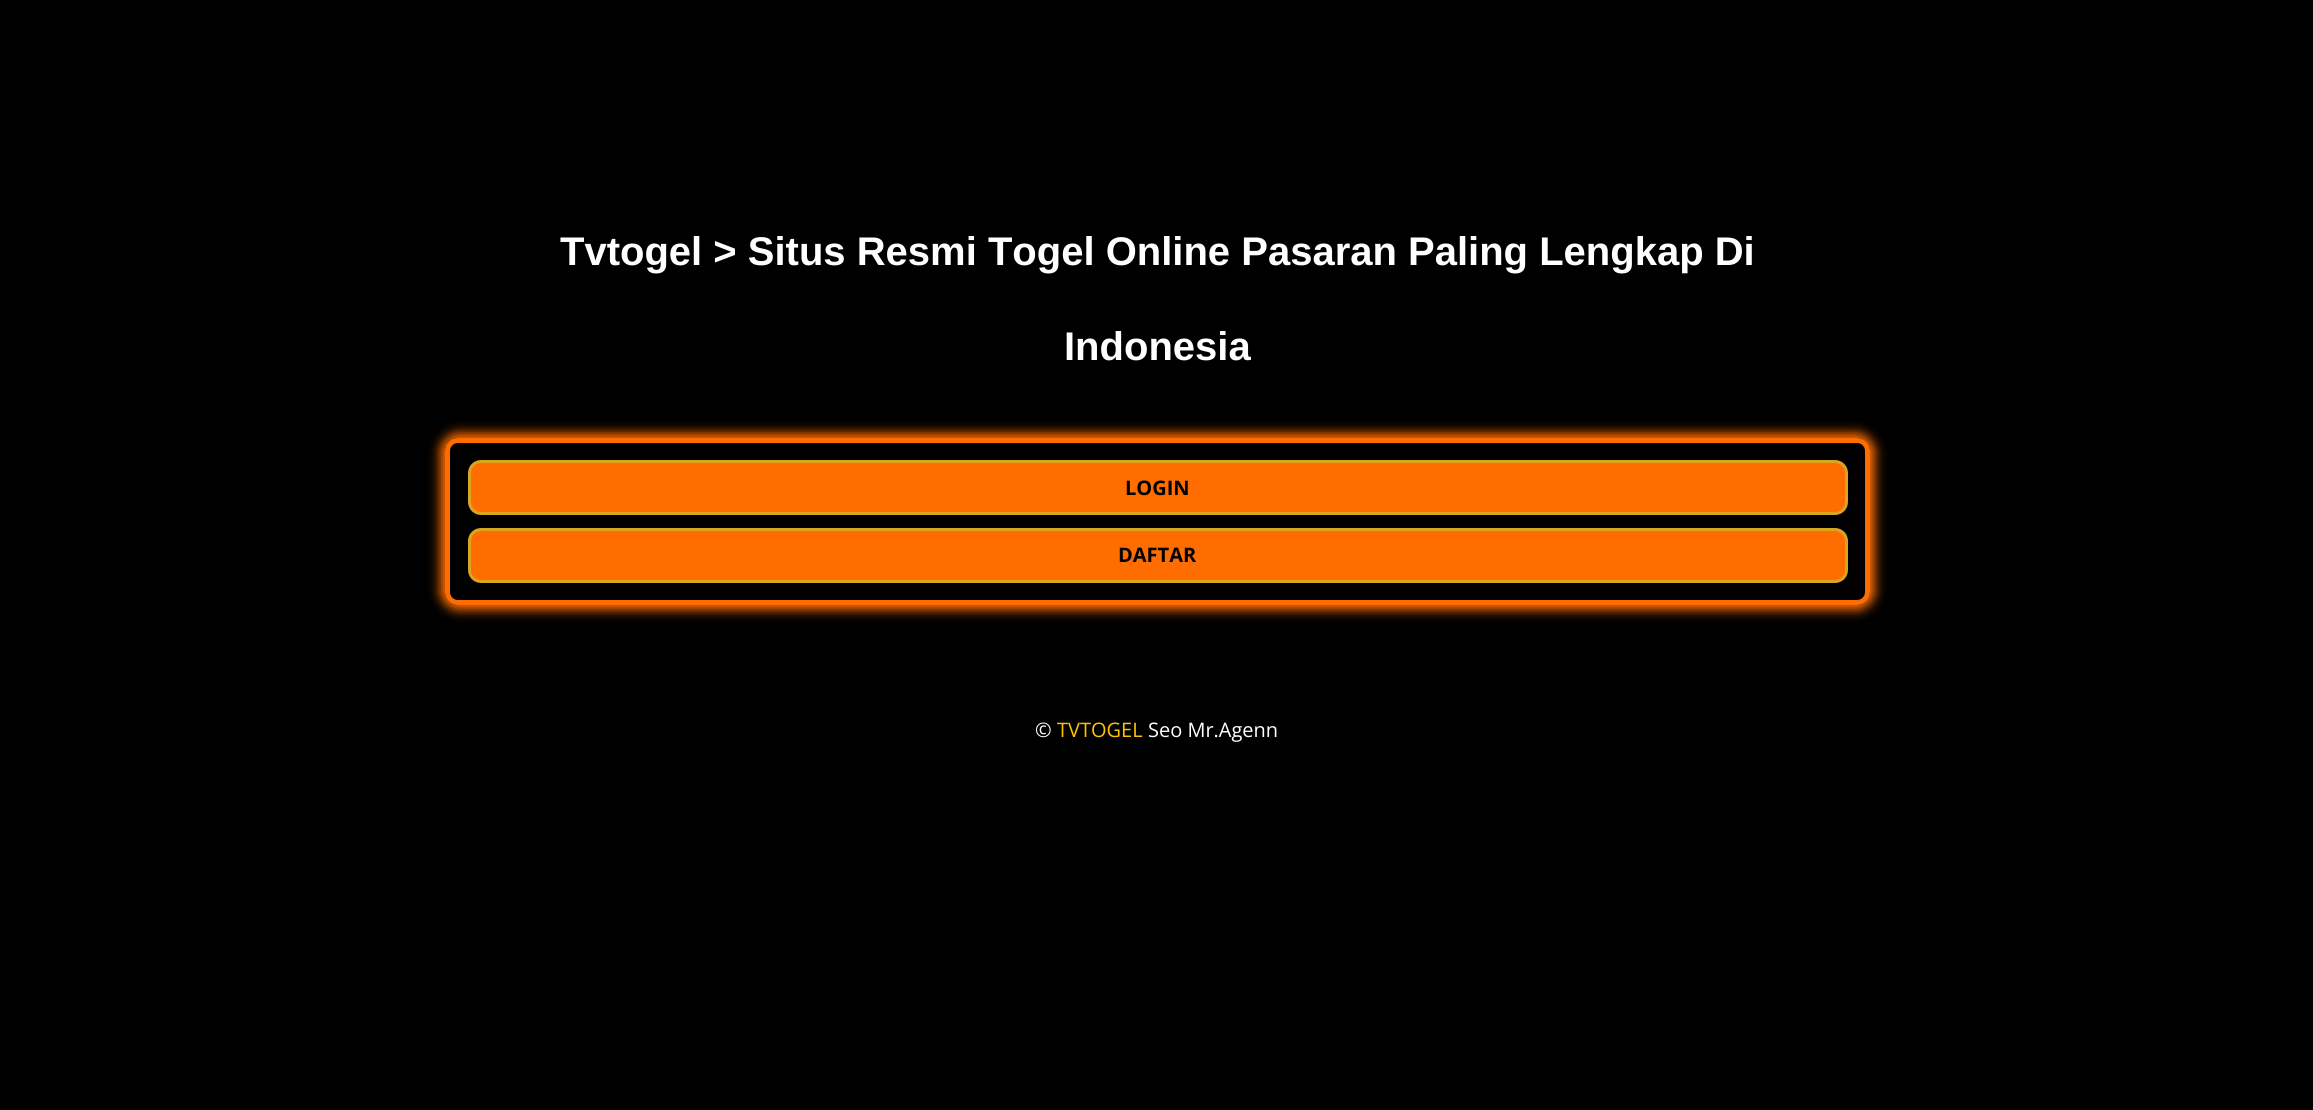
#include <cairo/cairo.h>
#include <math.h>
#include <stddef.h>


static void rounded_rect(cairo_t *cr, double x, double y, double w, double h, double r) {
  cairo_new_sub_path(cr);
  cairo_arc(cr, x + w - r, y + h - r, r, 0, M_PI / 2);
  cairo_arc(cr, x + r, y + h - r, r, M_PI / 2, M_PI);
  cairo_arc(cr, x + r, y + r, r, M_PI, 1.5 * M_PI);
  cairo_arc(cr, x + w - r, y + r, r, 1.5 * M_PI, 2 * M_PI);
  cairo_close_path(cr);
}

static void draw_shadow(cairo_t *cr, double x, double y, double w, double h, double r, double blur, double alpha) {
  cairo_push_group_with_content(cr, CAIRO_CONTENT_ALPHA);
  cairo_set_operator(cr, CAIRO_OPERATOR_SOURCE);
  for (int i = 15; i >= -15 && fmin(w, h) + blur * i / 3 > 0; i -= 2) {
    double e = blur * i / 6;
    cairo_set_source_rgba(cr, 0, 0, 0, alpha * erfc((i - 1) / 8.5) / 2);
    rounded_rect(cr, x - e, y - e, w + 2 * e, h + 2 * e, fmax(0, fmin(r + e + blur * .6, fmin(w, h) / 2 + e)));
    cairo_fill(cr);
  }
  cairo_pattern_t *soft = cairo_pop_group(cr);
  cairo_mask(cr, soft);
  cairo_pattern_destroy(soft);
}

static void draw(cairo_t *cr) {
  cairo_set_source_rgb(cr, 0, 0, 0);
  cairo_paint(cr);
  cairo_save(cr);
  cairo_set_fill_rule(cr, CAIRO_FILL_RULE_EVEN_ODD);
  cairo_new_path(cr);
  cairo_move_to(cr, 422, 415);
  cairo_line_to(cr, 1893, 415);
  cairo_line_to(cr, 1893, 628);
  cairo_line_to(cr, 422, 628);
  cairo_close_path(cr);
  cairo_move_to(cr, 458, 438);
  cairo_line_to(cr, 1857, 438);
  cairo_curve_to(cr, 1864, 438, 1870, 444, 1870, 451);
  cairo_line_to(cr, 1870, 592);
  cairo_curve_to(cr, 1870, 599, 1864, 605, 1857, 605);
  cairo_line_to(cr, 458, 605);
  cairo_curve_to(cr, 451, 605, 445, 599, 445, 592);
  cairo_line_to(cr, 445, 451);
  cairo_curve_to(cr, 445, 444, 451, 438, 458, 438);
  cairo_close_path(cr);
  cairo_clip(cr);
  cairo_set_source_rgb(cr, 1, 108 / 255.0, 0);
  draw_shadow(cr, 440, 433, 1435, 177, 18, 5.5, 1);
  cairo_restore(cr);
  rounded_rect(cr, 447.5, 440.5, 1420, 162, 10.5);
  cairo_set_source_rgb(cr, 1, 108 / 255.0, 0);
  cairo_set_line_width(cr, 5);
  cairo_stroke(cr);
  rounded_rect(cr, 469.5, 461.5, 1377, 52, 11.5);
  cairo_fill_preserve(cr);
  cairo_set_source_rgb(cr, 218 / 255.0, 165 / 255.0, 32 / 255.0);
  cairo_set_line_width(cr, 3);
  cairo_stroke(cr);
  cairo_set_source_rgb(cr, 1, 108 / 255.0, 0);
  rounded_rect(cr, 469.5, 529.5, 1377, 52, 11.5);
  cairo_fill_preserve(cr);
  cairo_set_source_rgb(cr, 218 / 255.0, 165 / 255.0, 32 / 255.0);
  cairo_stroke(cr);
  cairo_select_font_face(cr, "Liberation Sans", CAIRO_FONT_SLANT_NORMAL, CAIRO_FONT_WEIGHT_BOLD);
  cairo_set_font_size(cr, 40);
  cairo_set_source_rgb(cr, 1, 1, 1);
  cairo_move_to(cr, 560, 265);
  cairo_show_text(cr, "Tvtogel > Situs Resmi Togel Online Pasaran Paling Lengkap Di");
  cairo_move_to(cr, 1064, 360);
  cairo_show_text(cr, "Indonesia");
  cairo_select_font_face(cr, "Open Sans", CAIRO_FONT_SLANT_NORMAL, CAIRO_FONT_WEIGHT_BOLD);
  cairo_set_font_size(cr, 20);
  cairo_set_source_rgb(cr, 0, 0, 0);
  cairo_move_to(cr, 1125, 495);
  cairo_show_text(cr, "LOGIN");
  cairo_move_to(cr, 1118, 562);
  cairo_show_text(cr, "DAFTAR");
  cairo_select_font_face(cr, "Open Sans", CAIRO_FONT_SLANT_NORMAL, CAIRO_FONT_WEIGHT_NORMAL);
  cairo_set_source_rgb(cr, 1, 1, 1);
  cairo_move_to(cr, 1035, 737);
  cairo_show_text(cr, "©");
  cairo_set_source_rgb(cr, 1, 195 / 255.0, 0);
  cairo_move_to(cr, 1057, 737);
  cairo_show_text(cr, "TVTOGEL");
  cairo_set_source_rgb(cr, 1, 1, 1);
  cairo_move_to(cr, 1148, 737);
  cairo_show_text(cr, "Seo Mr.Agenn");
}

int main(void) {
  cairo_surface_t *surface = cairo_image_surface_create(CAIRO_FORMAT_RGB24, 2313, 1110);
  cairo_t *cr = cairo_create(surface);
  cairo_font_options_t *options = cairo_font_options_create();
  cairo_font_options_set_hint_metrics(options, CAIRO_HINT_METRICS_OFF);
  cairo_font_options_set_hint_style(options, CAIRO_HINT_STYLE_NONE);
  cairo_set_font_options(cr, options);
  cairo_set_miter_limit(cr, 4);
  draw(cr);
  cairo_surface_write_to_png(surface, "out.png");
  cairo_font_options_destroy(options);
  cairo_destroy(cr);
  cairo_surface_destroy(surface);
  return 0;
}
